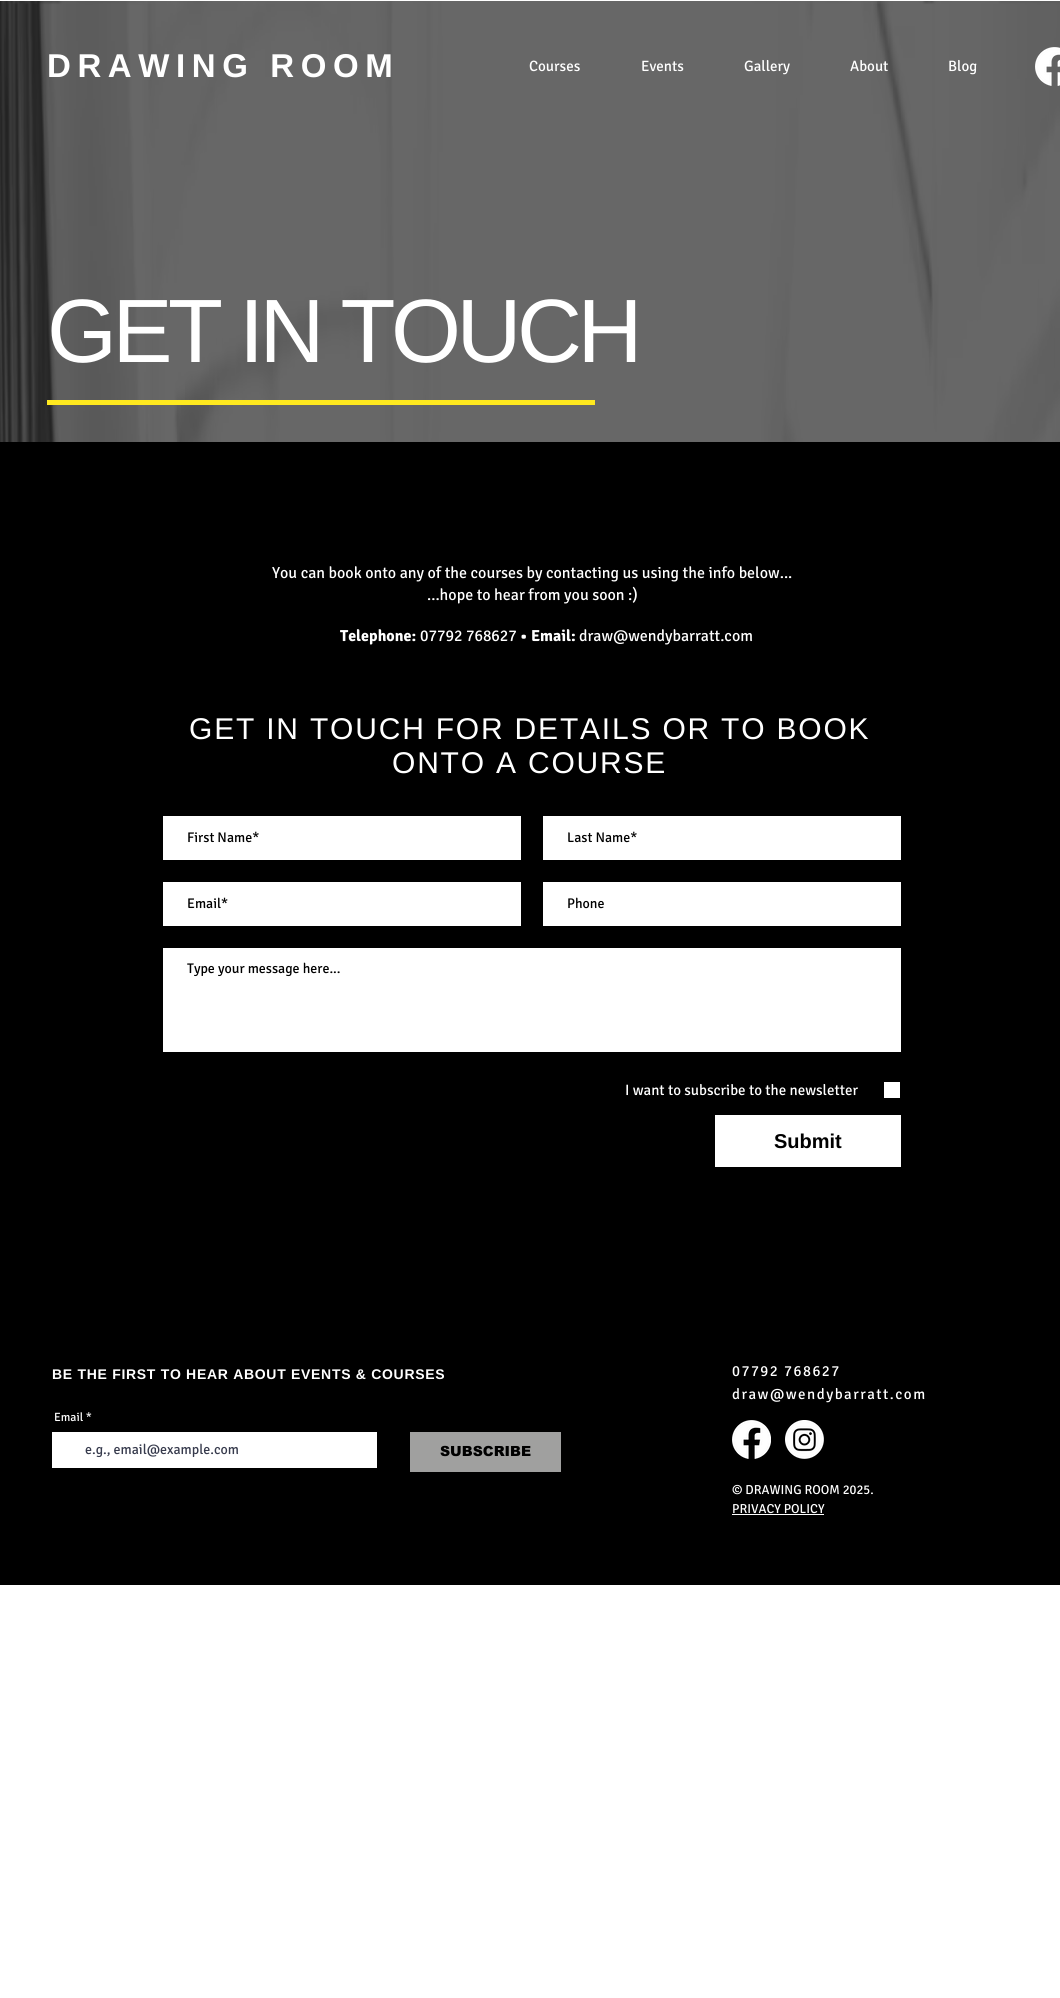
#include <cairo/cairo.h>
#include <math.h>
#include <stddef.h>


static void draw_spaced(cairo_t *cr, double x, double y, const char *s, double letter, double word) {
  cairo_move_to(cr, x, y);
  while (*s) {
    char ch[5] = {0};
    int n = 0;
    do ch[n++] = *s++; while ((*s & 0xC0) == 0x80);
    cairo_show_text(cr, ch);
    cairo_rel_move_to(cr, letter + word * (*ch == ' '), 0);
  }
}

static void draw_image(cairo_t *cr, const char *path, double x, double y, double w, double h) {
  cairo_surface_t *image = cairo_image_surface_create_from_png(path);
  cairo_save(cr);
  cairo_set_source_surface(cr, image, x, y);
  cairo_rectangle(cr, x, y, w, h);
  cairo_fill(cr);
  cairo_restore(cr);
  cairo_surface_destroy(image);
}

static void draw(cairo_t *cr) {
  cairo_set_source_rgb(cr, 1, 1, 1);
  cairo_paint(cr);
  cairo_set_source_rgb(cr, 47 / 255.0, 46 / 255.0, 46 / 255.0);
  cairo_rectangle(cr, 0, 1, 1060, 441);
  cairo_fill(cr);
  draw_image(cr, "images/2.png", 0, 1, 1060, 441);
  draw_image(cr, "images/1.png", 1035, 47, 25, 39);
  cairo_set_source_rgb(cr, 1, 233 / 255.0, 31 / 255.0);
  cairo_rectangle(cr, 47, 400, 548, 5);
  cairo_fill(cr);
  cairo_set_source_rgb(cr, 0, 0, 0);
  cairo_rectangle(cr, 0, 442, 1060, 1143);
  cairo_fill(cr);
  cairo_set_source_rgb(cr, 1, 1, 1);
  cairo_rectangle(cr, 163, 816, 358, 44);
  cairo_fill(cr);
  cairo_rectangle(cr, 543, 816, 358, 44);
  cairo_fill(cr);
  cairo_rectangle(cr, 163, 882, 358, 44);
  cairo_fill(cr);
  cairo_rectangle(cr, 543, 882, 358, 44);
  cairo_fill(cr);
  cairo_rectangle(cr, 163, 948, 738, 104);
  cairo_fill(cr);
  cairo_rectangle(cr, 884, 1082, 16, 16);
  cairo_fill(cr);
  cairo_rectangle(cr, 715, 1115, 186, 52);
  cairo_fill(cr);
  cairo_rectangle(cr, 52, 1432, 325, 36);
  cairo_fill(cr);
  cairo_set_source_rgb(cr, 160 / 255.0, 160 / 255.0, 159 / 255.0);
  cairo_rectangle(cr, 410, 1432, 151, 40);
  cairo_fill(cr);
  draw_image(cr, "images/3.png", 732, 1420, 39, 39);
  draw_image(cr, "images/4.png", 785, 1420, 39, 39);
  cairo_set_source_rgb(cr, 1, 1, 1);
  cairo_rectangle(cr, 732, 1514, 92, 1);
  cairo_fill(cr);
  cairo_select_font_face(cr, "Liberation Sans", CAIRO_FONT_SLANT_NORMAL, CAIRO_FONT_WEIGHT_BOLD);
  cairo_set_font_size(cr, 33);
  draw_spaced(cr, 47, 77, "DRAWING ROOM", 6.6, 0);
  cairo_select_font_face(cr, "Signika", CAIRO_FONT_SLANT_NORMAL, CAIRO_FONT_WEIGHT_NORMAL);
  cairo_set_font_size(cr, 15);
  cairo_move_to(cr, 529, 71);
  cairo_show_text(cr, "Courses");
  cairo_move_to(cr, 641, 71);
  cairo_show_text(cr, "Events");
  cairo_move_to(cr, 744, 71);
  cairo_show_text(cr, "Gallery");
  cairo_move_to(cr, 850, 71);
  cairo_show_text(cr, "About");
  cairo_move_to(cr, 948, 71);
  cairo_show_text(cr, "Blog");
  cairo_select_font_face(cr, "Liberation Sans", CAIRO_FONT_SLANT_NORMAL, CAIRO_FONT_WEIGHT_NORMAL);
  cairo_set_font_size(cr, 90);
  draw_spaced(cr, 47, 362, "GET IN TOUCH", -4.5, 0);
  cairo_select_font_face(cr, "Signika", CAIRO_FONT_SLANT_NORMAL, CAIRO_FONT_WEIGHT_NORMAL);
  cairo_set_font_size(cr, 16);
  cairo_move_to(cr, 272, 578);
  cairo_show_text(cr, "You can book onto any of the courses by contacting us using the info below...");
  cairo_move_to(cr, 427, 600);
  cairo_show_text(cr, "...hope to hear from you soon :)");
  cairo_select_font_face(cr, "Signika", CAIRO_FONT_SLANT_NORMAL, CAIRO_FONT_WEIGHT_BOLD);
  cairo_move_to(cr, 340, 641);
  cairo_show_text(cr, "Telephone:");
  cairo_select_font_face(cr, "Signika", CAIRO_FONT_SLANT_NORMAL, CAIRO_FONT_WEIGHT_NORMAL);
  cairo_move_to(cr, 420, 641);
  cairo_show_text(cr, "07792 768627");
  cairo_select_font_face(cr, "Signika", CAIRO_FONT_SLANT_NORMAL, CAIRO_FONT_WEIGHT_BOLD);
  cairo_move_to(cr, 520, 641);
  cairo_show_text(cr, "• Email:");
  cairo_select_font_face(cr, "Signika", CAIRO_FONT_SLANT_NORMAL, CAIRO_FONT_WEIGHT_NORMAL);
  cairo_move_to(cr, 579, 641);
  cairo_show_text(cr, "draw@wendybarratt.com");
  cairo_select_font_face(cr, "Liberation Sans", CAIRO_FONT_SLANT_NORMAL, CAIRO_FONT_WEIGHT_NORMAL);
  cairo_set_font_size(cr, 30);
  draw_spaced(cr, 189, 739, "GET IN TOUCH FOR DETAILS OR TO BOOK", 1.8, 0);
  draw_spaced(cr, 392, 773, "ONTO A COURSE", 1.8, 0);
  cairo_select_font_face(cr, "Signika", CAIRO_FONT_SLANT_NORMAL, CAIRO_FONT_WEIGHT_NORMAL);
  cairo_set_font_size(cr, 14);
  cairo_set_source_rgb(cr, 0, 0, 0);
  cairo_move_to(cr, 187, 842);
  cairo_show_text(cr, "First Name*");
  cairo_move_to(cr, 567, 842);
  cairo_show_text(cr, "Last Name*");
  cairo_move_to(cr, 187, 908);
  cairo_show_text(cr, "Email*");
  cairo_move_to(cr, 567, 908);
  cairo_show_text(cr, "Phone");
  cairo_move_to(cr, 187, 973);
  cairo_show_text(cr, "Type your message here...");
  cairo_set_font_size(cr, 15);
  cairo_set_source_rgb(cr, 1, 1, 1);
  cairo_move_to(cr, 625, 1095);
  cairo_show_text(cr, "I want to subscribe to the newsletter");
  cairo_select_font_face(cr, "Liberation Sans", CAIRO_FONT_SLANT_NORMAL, CAIRO_FONT_WEIGHT_BOLD);
  cairo_set_font_size(cr, 20);
  cairo_set_source_rgb(cr, 0, 0, 0);
  cairo_move_to(cr, 774, 1148);
  cairo_show_text(cr, "Submit");
  cairo_set_font_size(cr, 14);
  cairo_set_source_rgb(cr, 1, 1, 1);
  draw_spaced(cr, 52, 1379, "BE THE FIRST TO HEAR ABOUT EVENTS & COURSES", 0.7, 0);
  cairo_select_font_face(cr, "Signika", CAIRO_FONT_SLANT_NORMAL, CAIRO_FONT_WEIGHT_NORMAL);
  cairo_set_font_size(cr, 12);
  cairo_move_to(cr, 54, 1421);
  cairo_show_text(cr, "Email *");
  cairo_set_font_size(cr, 14);
  cairo_set_source_rgb(cr, 55 / 255.0, 59 / 255.0, 77 / 255.0);
  cairo_move_to(cr, 85, 1454);
  cairo_show_text(cr, "e.g., email@example.com");
  cairo_select_font_face(cr, "arial Black", CAIRO_FONT_SLANT_NORMAL, CAIRO_FONT_WEIGHT_NORMAL);
  cairo_set_source_rgb(cr, 0, 0, 0);
  cairo_move_to(cr, 440, 1456);
  cairo_show_text(cr, "SUBSCRIBE");
  cairo_select_font_face(cr, "Signika", CAIRO_FONT_SLANT_NORMAL, CAIRO_FONT_WEIGHT_NORMAL);
  cairo_set_font_size(cr, 15);
  cairo_set_source_rgb(cr, 1, 1, 1);
  draw_spaced(cr, 732, 1376, "07792 768627", 1.5, 0);
  draw_spaced(cr, 732, 1399, "draw@wendybarratt.com", 1.5, 0);
  cairo_set_font_size(cr, 13);
  cairo_move_to(cr, 732, 1494);
  cairo_show_text(cr, "© DRAWING ROOM 2025.");
  cairo_move_to(cr, 732, 1513);
  cairo_show_text(cr, "PRIVACY POLICY");
}

int main(void) {
  cairo_surface_t *surface = cairo_image_surface_create(CAIRO_FORMAT_RGB24, 1060, 1998);
  cairo_t *cr = cairo_create(surface);
  cairo_font_options_t *options = cairo_font_options_create();
  cairo_font_options_set_hint_metrics(options, CAIRO_HINT_METRICS_OFF);
  cairo_font_options_set_hint_style(options, CAIRO_HINT_STYLE_NONE);
  cairo_set_font_options(cr, options);
  cairo_set_miter_limit(cr, 4);
  draw(cr);
  cairo_surface_write_to_png(surface, "out.png");
  cairo_font_options_destroy(options);
  cairo_destroy(cr);
  cairo_surface_destroy(surface);
  return 0;
}
